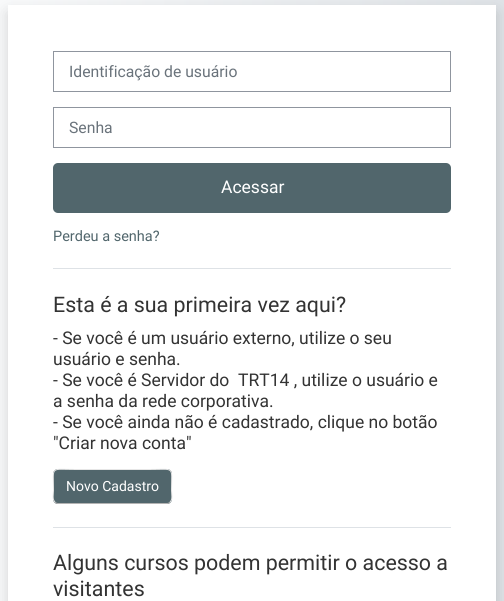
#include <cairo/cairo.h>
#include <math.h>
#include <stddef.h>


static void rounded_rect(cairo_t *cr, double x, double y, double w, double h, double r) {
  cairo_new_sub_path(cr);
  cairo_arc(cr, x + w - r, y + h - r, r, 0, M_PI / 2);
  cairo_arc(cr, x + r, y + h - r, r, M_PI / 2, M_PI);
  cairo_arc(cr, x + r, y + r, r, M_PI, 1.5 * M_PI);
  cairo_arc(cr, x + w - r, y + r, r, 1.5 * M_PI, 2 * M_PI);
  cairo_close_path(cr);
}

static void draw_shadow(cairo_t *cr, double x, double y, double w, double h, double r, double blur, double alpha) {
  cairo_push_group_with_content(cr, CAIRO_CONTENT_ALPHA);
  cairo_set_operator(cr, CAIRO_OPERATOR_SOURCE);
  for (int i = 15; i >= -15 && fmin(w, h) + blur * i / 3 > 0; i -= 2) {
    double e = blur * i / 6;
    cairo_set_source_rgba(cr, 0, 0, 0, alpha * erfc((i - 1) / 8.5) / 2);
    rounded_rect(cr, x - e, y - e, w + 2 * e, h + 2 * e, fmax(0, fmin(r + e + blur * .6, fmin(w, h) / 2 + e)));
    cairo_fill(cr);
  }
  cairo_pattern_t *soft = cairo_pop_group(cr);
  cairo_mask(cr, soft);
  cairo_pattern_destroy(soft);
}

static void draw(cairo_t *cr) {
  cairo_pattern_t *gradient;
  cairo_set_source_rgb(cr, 1, 1, 1);
  cairo_paint(cr);
  gradient = cairo_pattern_create_linear(0, 416, 504, 416);
  cairo_pattern_add_color_stop_rgba(gradient, 0, 248 / 255.0, 249 / 255.0, 250 / 255.0, 1);
  cairo_pattern_add_color_stop_rgba(gradient, 1, 222 / 255.0, 226 / 255.0, 230 / 255.0, 1);
  cairo_set_source(cr, gradient);
  cairo_pattern_destroy(gradient);
  cairo_rectangle(cr, 0, 0, 504, 601);
  cairo_fill(cr);
  cairo_set_source_rgb(cr, 0, 0, 0);
  draw_shadow(cr, 8, 13, 488, 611, 0, 7.5, 0.15);
  cairo_set_source_rgb(cr, 1, 1, 1);
  cairo_rectangle(cr, 8, 5, 488, 596);
  cairo_fill(cr);
  cairo_rectangle(cr, 53.5, 51.5, 397, 40);
  cairo_set_source_rgb(cr, 143 / 255.0, 149 / 255.0, 158 / 255.0);
  cairo_set_line_width(cr, 1);
  cairo_stroke(cr);
  cairo_rectangle(cr, 53.5, 107.5, 397, 40);
  cairo_stroke(cr);
  cairo_set_source_rgb(cr, 81 / 255.0, 102 / 255.0, 108 / 255.0);
  rounded_rect(cr, 53, 163, 398, 50, 5);
  cairo_fill(cr);
  cairo_set_source_rgb(cr, 222 / 255.0, 226 / 255.0, 230 / 255.0);
  cairo_rectangle(cr, 53, 268, 398, 1);
  cairo_fill(cr);
  cairo_set_source_rgb(cr, 81 / 255.0, 102 / 255.0, 108 / 255.0);
  rounded_rect(cr, 53, 469, 119, 35, 5);
  cairo_fill(cr);
  cairo_new_path(cr);
  cairo_move_to(cr, 170, 502);
  cairo_curve_to(cr, 169.5, 503, 168, 503.5, 167, 503.5);
  cairo_line_to(cr, 58, 503.5);
  cairo_curve_to(cr, 57, 503.5, 55.5, 503, 55, 502);
  cairo_set_source_rgb(cr, 179 / 255.0, 179 / 255.0, 179 / 255.0);
  cairo_stroke(cr);
  cairo_new_path(cr);
  cairo_move_to(cr, 55, 502);
  cairo_curve_to(cr, 52, 499.5, 53.5, 494, 53.5, 490.5);
  cairo_curve_to(cr, 53.5, 465.5, 49.5, 469.5, 76, 469.5);
  cairo_line_to(cr, 149, 469.5);
  cairo_curve_to(cr, 175.5, 469.5, 171.5, 465.5, 171.5, 490.5);
  cairo_curve_to(cr, 171.5, 494, 173, 499.5, 170, 502);
  cairo_set_source_rgb(cr, 230 / 255.0, 230 / 255.0, 230 / 255.0);
  cairo_stroke(cr);
  cairo_set_source_rgb(cr, 222 / 255.0, 226 / 255.0, 230 / 255.0);
  cairo_rectangle(cr, 53, 527, 398, 1);
  cairo_fill(cr);
  cairo_select_font_face(cr, "Roboto", CAIRO_FONT_SLANT_NORMAL, CAIRO_FONT_WEIGHT_NORMAL);
  cairo_set_font_size(cr, 15.75);
  cairo_set_source_rgb(cr, 106 / 255.0, 115 / 255.0, 123 / 255.0);
  cairo_move_to(cr, 69, 77);
  cairo_show_text(cr, "Identificação de usuário");
  cairo_move_to(cr, 69, 133);
  cairo_show_text(cr, "Senha");
  cairo_set_font_size(cr, 17.5);
  cairo_set_source_rgb(cr, 1, 1, 1);
  cairo_move_to(cr, 221, 193);
  cairo_show_text(cr, "Acessar");
  cairo_set_font_size(cr, 14.5);
  cairo_set_source_rgb(cr, 81 / 255.0, 102 / 255.0, 108 / 255.0);
  cairo_move_to(cr, 53, 241);
  cairo_show_text(cr, "Perdeu a senha?");
  cairo_set_font_size(cr, 21.4);
  cairo_set_source_rgb(cr, 51 / 255.0, 51 / 255.0, 51 / 255.0);
  cairo_move_to(cr, 53, 312);
  cairo_show_text(cr, "Esta é a sua primeira vez aqui?");
  cairo_set_font_size(cr, 17.5);
  cairo_move_to(cr, 53, 344);
  cairo_show_text(cr, "- Se você é um usuário externo, utilize o seu");
  cairo_move_to(cr, 53, 365);
  cairo_show_text(cr, "usuário e senha.");
  cairo_move_to(cr, 53, 386);
  cairo_show_text(cr, "- Se você é Servidor do  TRT14 , utilize o usuário e");
  cairo_move_to(cr, 53, 407);
  cairo_show_text(cr, "a senha da rede corporativa.");
  cairo_move_to(cr, 53, 428);
  cairo_show_text(cr, "- Se você ainda não é cadastrado, clique no botão");
  cairo_move_to(cr, 53, 449);
  cairo_show_text(cr, "\"Criar nova conta\"");
  cairo_set_font_size(cr, 14);
  cairo_set_source_rgb(cr, 1, 1, 1);
  cairo_move_to(cr, 66, 491);
  cairo_show_text(cr, "Novo Cadastro");
  cairo_set_font_size(cr, 21.4);
  cairo_set_source_rgb(cr, 51 / 255.0, 51 / 255.0, 51 / 255.0);
  cairo_move_to(cr, 53, 570);
  cairo_show_text(cr, "Alguns cursos podem permitir o acesso a");
  cairo_move_to(cr, 53, 596);
  cairo_show_text(cr, "visitantes");
}

int main(void) {
  cairo_surface_t *surface = cairo_image_surface_create(CAIRO_FORMAT_RGB24, 504, 601);
  cairo_t *cr = cairo_create(surface);
  cairo_font_options_t *options = cairo_font_options_create();
  cairo_font_options_set_hint_metrics(options, CAIRO_HINT_METRICS_OFF);
  cairo_font_options_set_hint_style(options, CAIRO_HINT_STYLE_NONE);
  cairo_set_font_options(cr, options);
  cairo_set_miter_limit(cr, 4);
  draw(cr);
  cairo_surface_write_to_png(surface, "out.png");
  cairo_font_options_destroy(options);
  cairo_destroy(cr);
  cairo_surface_destroy(surface);
  return 0;
}
